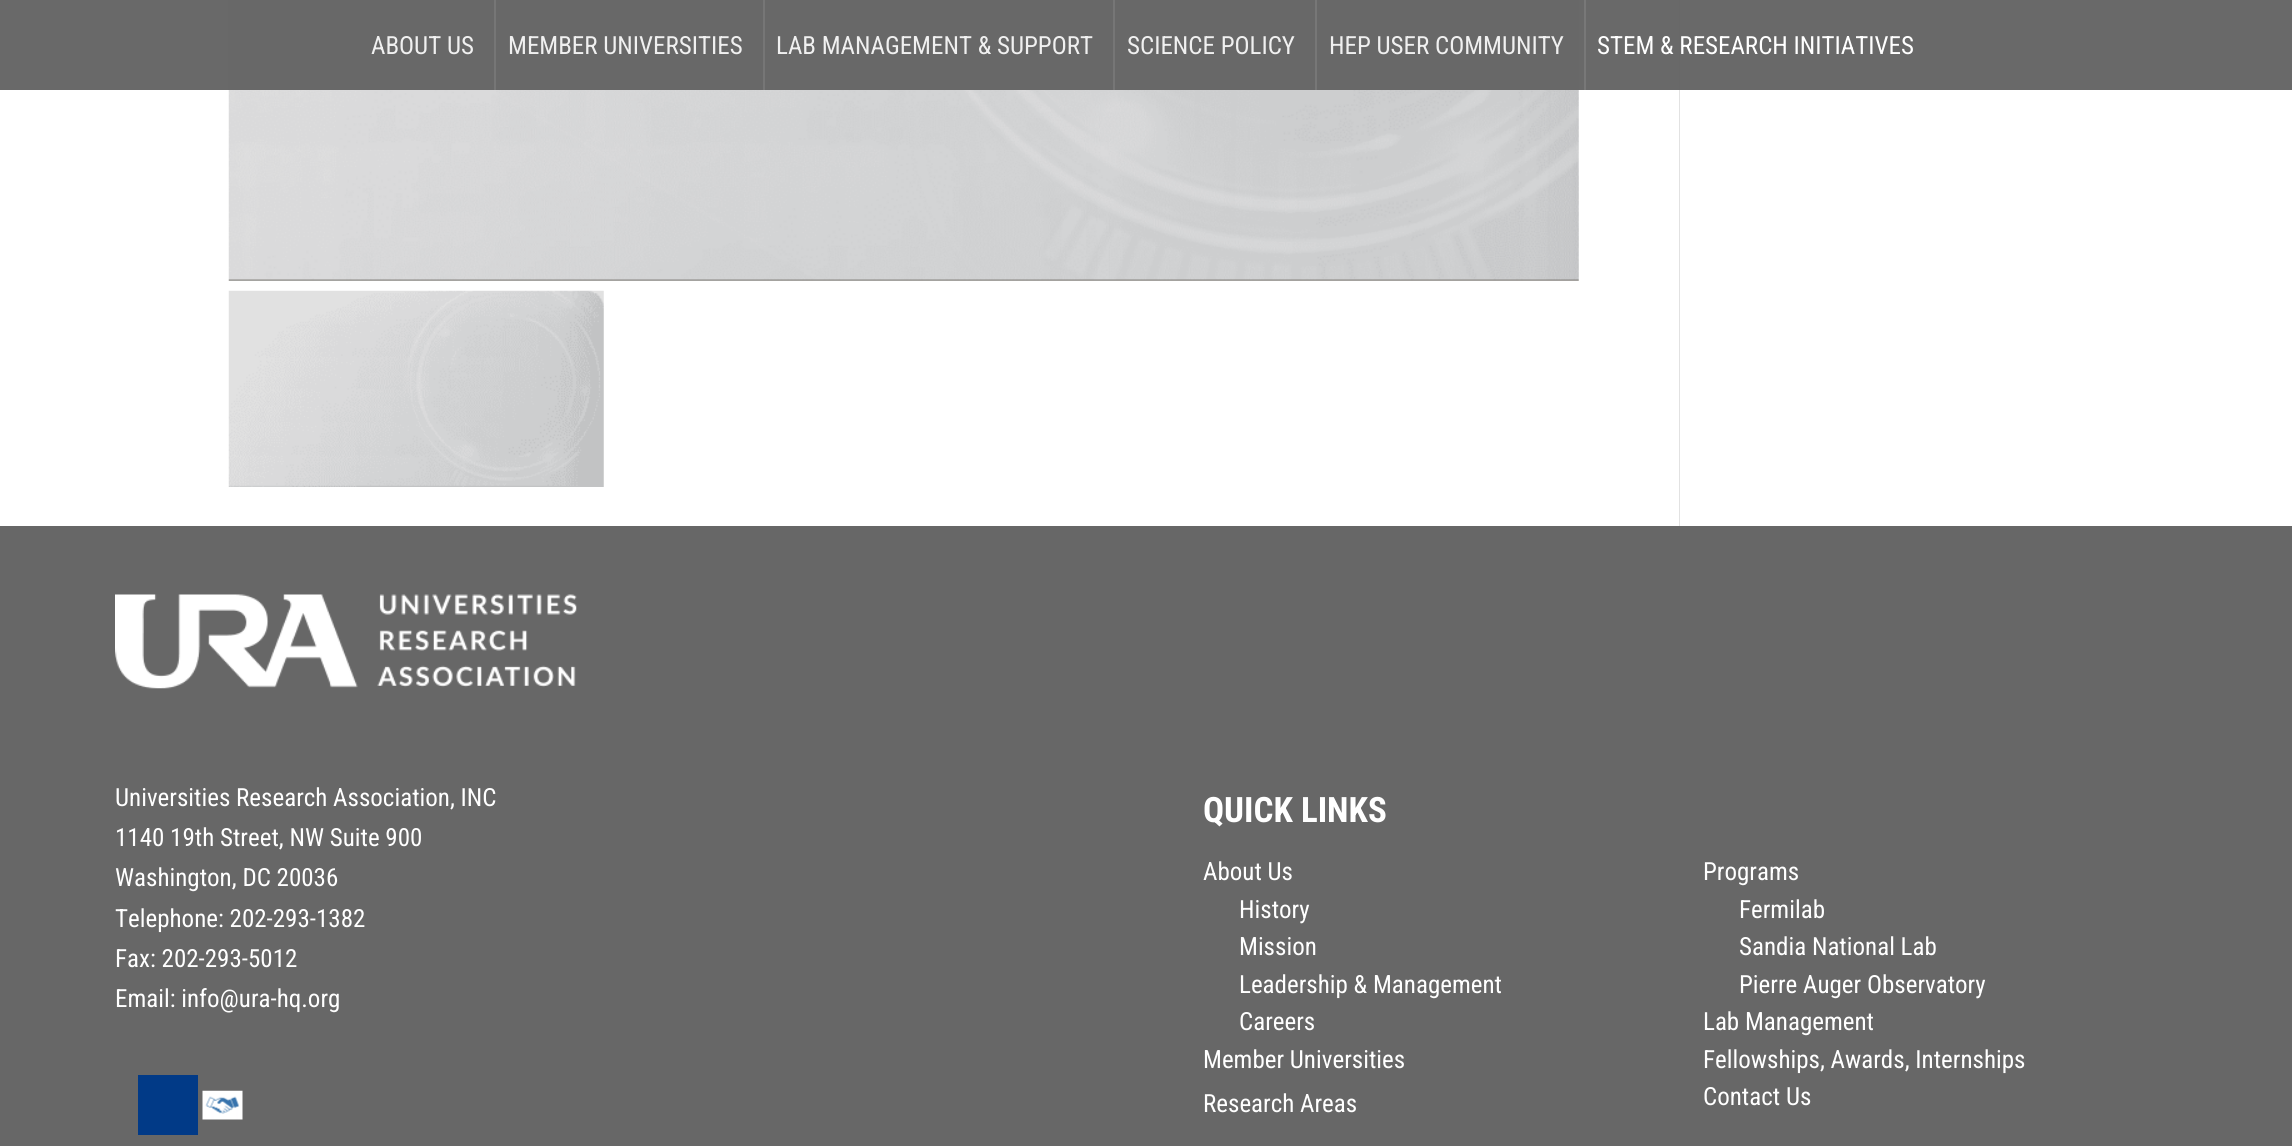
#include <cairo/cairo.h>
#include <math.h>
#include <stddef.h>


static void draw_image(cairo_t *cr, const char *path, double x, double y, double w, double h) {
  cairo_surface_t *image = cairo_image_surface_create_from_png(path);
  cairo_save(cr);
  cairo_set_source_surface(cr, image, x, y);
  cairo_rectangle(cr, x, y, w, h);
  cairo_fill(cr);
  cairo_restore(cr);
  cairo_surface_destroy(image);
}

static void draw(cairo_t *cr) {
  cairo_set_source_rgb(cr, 1, 1, 1);
  cairo_paint(cr);
  draw_image(cr, "images/1.png", 228, 0, 1351, 281);
  cairo_set_source_rgb(cr, 226 / 255.0, 226 / 255.0, 226 / 255.0);
  cairo_rectangle(cr, 1679, 0, 1, 526);
  cairo_fill(cr);
  cairo_set_source_rgba(cr, 103 / 255.0, 103 / 255.0, 103 / 255.0, 0.9);
  cairo_rectangle(cr, 0, 0, 2292, 90);
  cairo_fill(cr);
  cairo_rectangle(cr, 0, 0, 2292, 90);
  cairo_fill(cr);
  cairo_set_source_rgb(cr, 118 / 255.0, 118 / 255.0, 118 / 255.0);
  cairo_rectangle(cr, 494, 0, 2, 90);
  cairo_fill(cr);
  cairo_rectangle(cr, 763, 0, 2, 90);
  cairo_fill(cr);
  cairo_rectangle(cr, 1113, 0, 2, 90);
  cairo_fill(cr);
  cairo_set_source_rgb(cr, 119 / 255.0, 119 / 255.0, 119 / 255.0);
  cairo_rectangle(cr, 1315, 0, 2, 90);
  cairo_fill(cr);
  cairo_set_source_rgb(cr, 120 / 255.0, 120 / 255.0, 120 / 255.0);
  cairo_rectangle(cr, 1584, 0, 2, 90);
  cairo_fill(cr);
  draw_image(cr, "images/2.png", 228, 290, 376, 197);
  cairo_set_source_rgb(cr, 103 / 255.0, 103 / 255.0, 103 / 255.0);
  cairo_rectangle(cr, 0, 526, 2292, 620);
  cairo_fill(cr);
  draw_image(cr, "images/3.png", 115, 594, 462, 95);
  cairo_set_source_rgb(cr, 1 / 255.0, 58 / 255.0, 135 / 255.0);
  cairo_rectangle(cr, 138, 1075, 60, 60);
  cairo_fill(cr);
  draw_image(cr, "images/4.png", 202, 1090, 41, 30);
  cairo_select_font_face(cr, "Roboto Condensed", CAIRO_FONT_SLANT_NORMAL, CAIRO_FONT_WEIGHT_NORMAL);
  cairo_set_font_size(cr, 25);
  cairo_set_source_rgb(cr, 240 / 255.0, 240 / 255.0, 240 / 255.0);
  cairo_move_to(cr, 371, 54);
  cairo_show_text(cr, "ABOUT US");
  cairo_move_to(cr, 508, 54);
  cairo_show_text(cr, "MEMBER UNIVERSITIES");
  cairo_move_to(cr, 776, 54);
  cairo_show_text(cr, "LAB MANAGEMENT & SUPPORT");
  cairo_move_to(cr, 1127, 54);
  cairo_show_text(cr, "SCIENCE POLICY");
  cairo_move_to(cr, 1329, 54);
  cairo_show_text(cr, "HEP USER COMMUNITY");
  cairo_set_source_rgb(cr, 1, 1, 1);
  cairo_move_to(cr, 1597, 54);
  cairo_show_text(cr, "STEM & RESEARCH INITIATIVES");
  cairo_move_to(cr, 115, 806);
  cairo_show_text(cr, "Universities Research Association, INC");
  cairo_move_to(cr, 115, 846);
  cairo_show_text(cr, "1140 19th Street, NW Suite 900");
  cairo_move_to(cr, 115, 886);
  cairo_show_text(cr, "Washington, DC 20036");
  cairo_move_to(cr, 115, 927);
  cairo_show_text(cr, "Telephone: 202-293-1382");
  cairo_move_to(cr, 115, 967);
  cairo_show_text(cr, "Fax: 202-293-5012");
  cairo_move_to(cr, 115, 1007);
  cairo_show_text(cr, "Email: info@ura-hq.org");
  cairo_select_font_face(cr, "Roboto Condensed", CAIRO_FONT_SLANT_NORMAL, CAIRO_FONT_WEIGHT_BOLD);
  cairo_set_font_size(cr, 35);
  cairo_move_to(cr, 1203, 822);
  cairo_show_text(cr, "QUICK LINKS");
  cairo_select_font_face(cr, "Roboto Condensed", CAIRO_FONT_SLANT_NORMAL, CAIRO_FONT_WEIGHT_NORMAL);
  cairo_set_font_size(cr, 25);
  cairo_move_to(cr, 1203, 880);
  cairo_show_text(cr, "About Us");
  cairo_move_to(cr, 1703, 880);
  cairo_show_text(cr, "Programs");
  cairo_move_to(cr, 1239, 918);
  cairo_show_text(cr, "History");
  cairo_move_to(cr, 1739, 918);
  cairo_show_text(cr, "Fermilab");
  cairo_move_to(cr, 1239, 955);
  cairo_show_text(cr, "Mission");
  cairo_move_to(cr, 1739, 955);
  cairo_show_text(cr, "Sandia National Lab");
  cairo_move_to(cr, 1239, 993);
  cairo_show_text(cr, "Leadership & Management");
  cairo_move_to(cr, 1739, 993);
  cairo_show_text(cr, "Pierre Auger Observatory");
  cairo_move_to(cr, 1239, 1030);
  cairo_show_text(cr, "Careers");
  cairo_move_to(cr, 1703, 1030);
  cairo_show_text(cr, "Lab Management");
  cairo_move_to(cr, 1203, 1068);
  cairo_show_text(cr, "Member Universities");
  cairo_move_to(cr, 1703, 1068);
  cairo_show_text(cr, "Fellowships, Awards, Internships");
  cairo_move_to(cr, 1203, 1112);
  cairo_show_text(cr, "Research Areas");
  cairo_move_to(cr, 1703, 1105);
  cairo_show_text(cr, "Contact Us");
}

int main(void) {
  cairo_surface_t *surface = cairo_image_surface_create(CAIRO_FORMAT_RGB24, 2292, 1146);
  cairo_t *cr = cairo_create(surface);
  cairo_font_options_t *options = cairo_font_options_create();
  cairo_font_options_set_hint_metrics(options, CAIRO_HINT_METRICS_OFF);
  cairo_font_options_set_hint_style(options, CAIRO_HINT_STYLE_NONE);
  cairo_set_font_options(cr, options);
  cairo_set_miter_limit(cr, 4);
  draw(cr);
  cairo_surface_write_to_png(surface, "out.png");
  cairo_font_options_destroy(options);
  cairo_destroy(cr);
  cairo_surface_destroy(surface);
  return 0;
}
